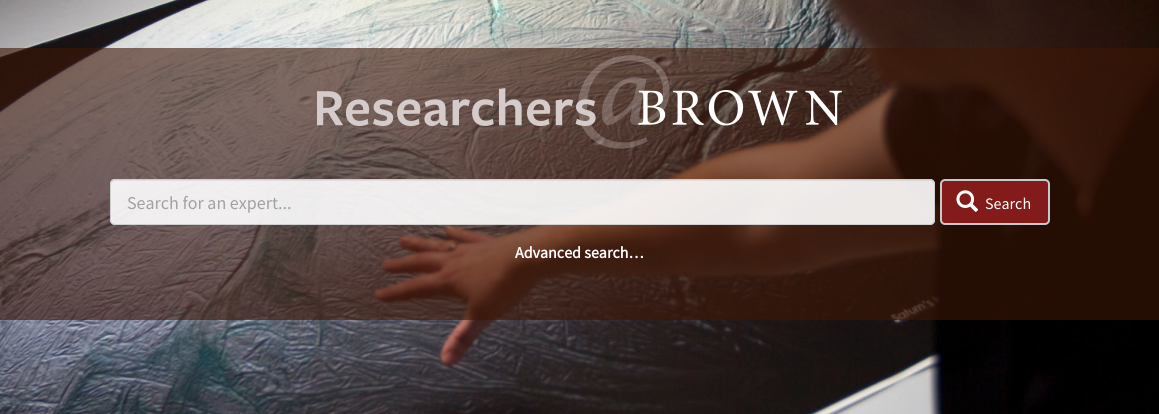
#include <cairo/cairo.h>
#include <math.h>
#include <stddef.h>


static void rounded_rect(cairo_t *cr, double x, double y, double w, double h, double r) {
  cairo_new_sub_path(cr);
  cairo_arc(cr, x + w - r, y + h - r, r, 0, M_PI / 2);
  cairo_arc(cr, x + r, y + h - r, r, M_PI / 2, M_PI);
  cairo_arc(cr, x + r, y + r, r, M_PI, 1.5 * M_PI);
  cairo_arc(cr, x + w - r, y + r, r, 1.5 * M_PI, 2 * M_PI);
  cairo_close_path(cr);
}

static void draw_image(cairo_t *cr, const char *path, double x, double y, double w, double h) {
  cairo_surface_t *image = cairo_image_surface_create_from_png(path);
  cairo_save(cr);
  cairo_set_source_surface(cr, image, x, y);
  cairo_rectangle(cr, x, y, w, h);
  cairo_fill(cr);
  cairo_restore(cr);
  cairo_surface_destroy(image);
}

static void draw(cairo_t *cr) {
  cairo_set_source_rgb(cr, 1, 1, 1);
  cairo_paint(cr);
  draw_image(cr, "images/1.png", 0, 0, 1159, 414);
  cairo_set_source_rgba(cr, 60 / 255.0, 22 / 255.0, 5 / 255.0, 0.6);
  cairo_rectangle(cr, 0, 48, 1159, 272);
  cairo_fill(cr);
  draw_image(cr, "images/2.png", 317, 55, 525, 94);
  cairo_set_source_rgba(cr, 1, 1, 1, 0.9);
  rounded_rect(cr, 110, 179, 825, 46, 5);
  cairo_fill(cr);
  cairo_set_source_rgba(cr, 0, 0, 0, 0.07);
  cairo_new_path(cr);
  cairo_move_to(cr, 115, 181);
  cairo_line_to(cr, 930, 181);
  cairo_curve_to(cr, 932, 181, 934, 183, 934, 185);
  cairo_curve_to(cr, 934, 182, 933, 180, 930, 180);
  cairo_line_to(cr, 115, 180);
  cairo_curve_to(cr, 112, 180, 111, 182, 111, 185);
  cairo_curve_to(cr, 111, 183, 113, 181, 115, 181);
  cairo_close_path(cr);
  cairo_fill(cr);
  rounded_rect(cr, 110.5, 179.5, 824, 45, 4.5);
  cairo_set_source_rgba(cr, 204 / 255.0, 204 / 255.0, 204 / 255.0, 0.9);
  cairo_set_line_width(cr, 1);
  cairo_stroke(cr);
  cairo_set_source_rgb(cr, 131 / 255.0, 27 / 255.0, 27 / 255.0);
  rounded_rect(cr, 941, 180, 108, 44, 4);
  cairo_fill_preserve(cr);
  cairo_set_source_rgb(cr, 201 / 255.0, 201 / 255.0, 201 / 255.0);
  cairo_set_line_width(cr, 2);
  cairo_stroke(cr);
  draw_image(cr, "images/3.png", 956, 190, 22, 22);
  cairo_select_font_face(cr, "Source Sans Pro", CAIRO_FONT_SLANT_NORMAL, CAIRO_FONT_WEIGHT_NORMAL);
  cairo_set_font_size(cr, 18);
  cairo_set_source_rgb(cr, 162 / 255.0, 162 / 255.0, 161 / 255.0);
  cairo_move_to(cr, 127, 209);
  cairo_show_text(cr, "Search for an expert...");
  cairo_set_font_size(cr, 16);
  cairo_set_source_rgb(cr, 1, 1, 1);
  cairo_move_to(cr, 985, 209);
  cairo_show_text(cr, "Search");
  cairo_select_font_face(cr, "Source Sans Pro", CAIRO_FONT_SLANT_NORMAL, CAIRO_FONT_WEIGHT_BOLD);
  cairo_move_to(cr, 515, 258);
  cairo_show_text(cr, "Advanced search…");
}

int main(void) {
  cairo_surface_t *surface = cairo_image_surface_create(CAIRO_FORMAT_RGB24, 1159, 414);
  cairo_t *cr = cairo_create(surface);
  cairo_font_options_t *options = cairo_font_options_create();
  cairo_font_options_set_hint_metrics(options, CAIRO_HINT_METRICS_OFF);
  cairo_font_options_set_hint_style(options, CAIRO_HINT_STYLE_NONE);
  cairo_set_font_options(cr, options);
  cairo_set_miter_limit(cr, 4);
  draw(cr);
  cairo_surface_write_to_png(surface, "out.png");
  cairo_font_options_destroy(options);
  cairo_destroy(cr);
  cairo_surface_destroy(surface);
  return 0;
}
